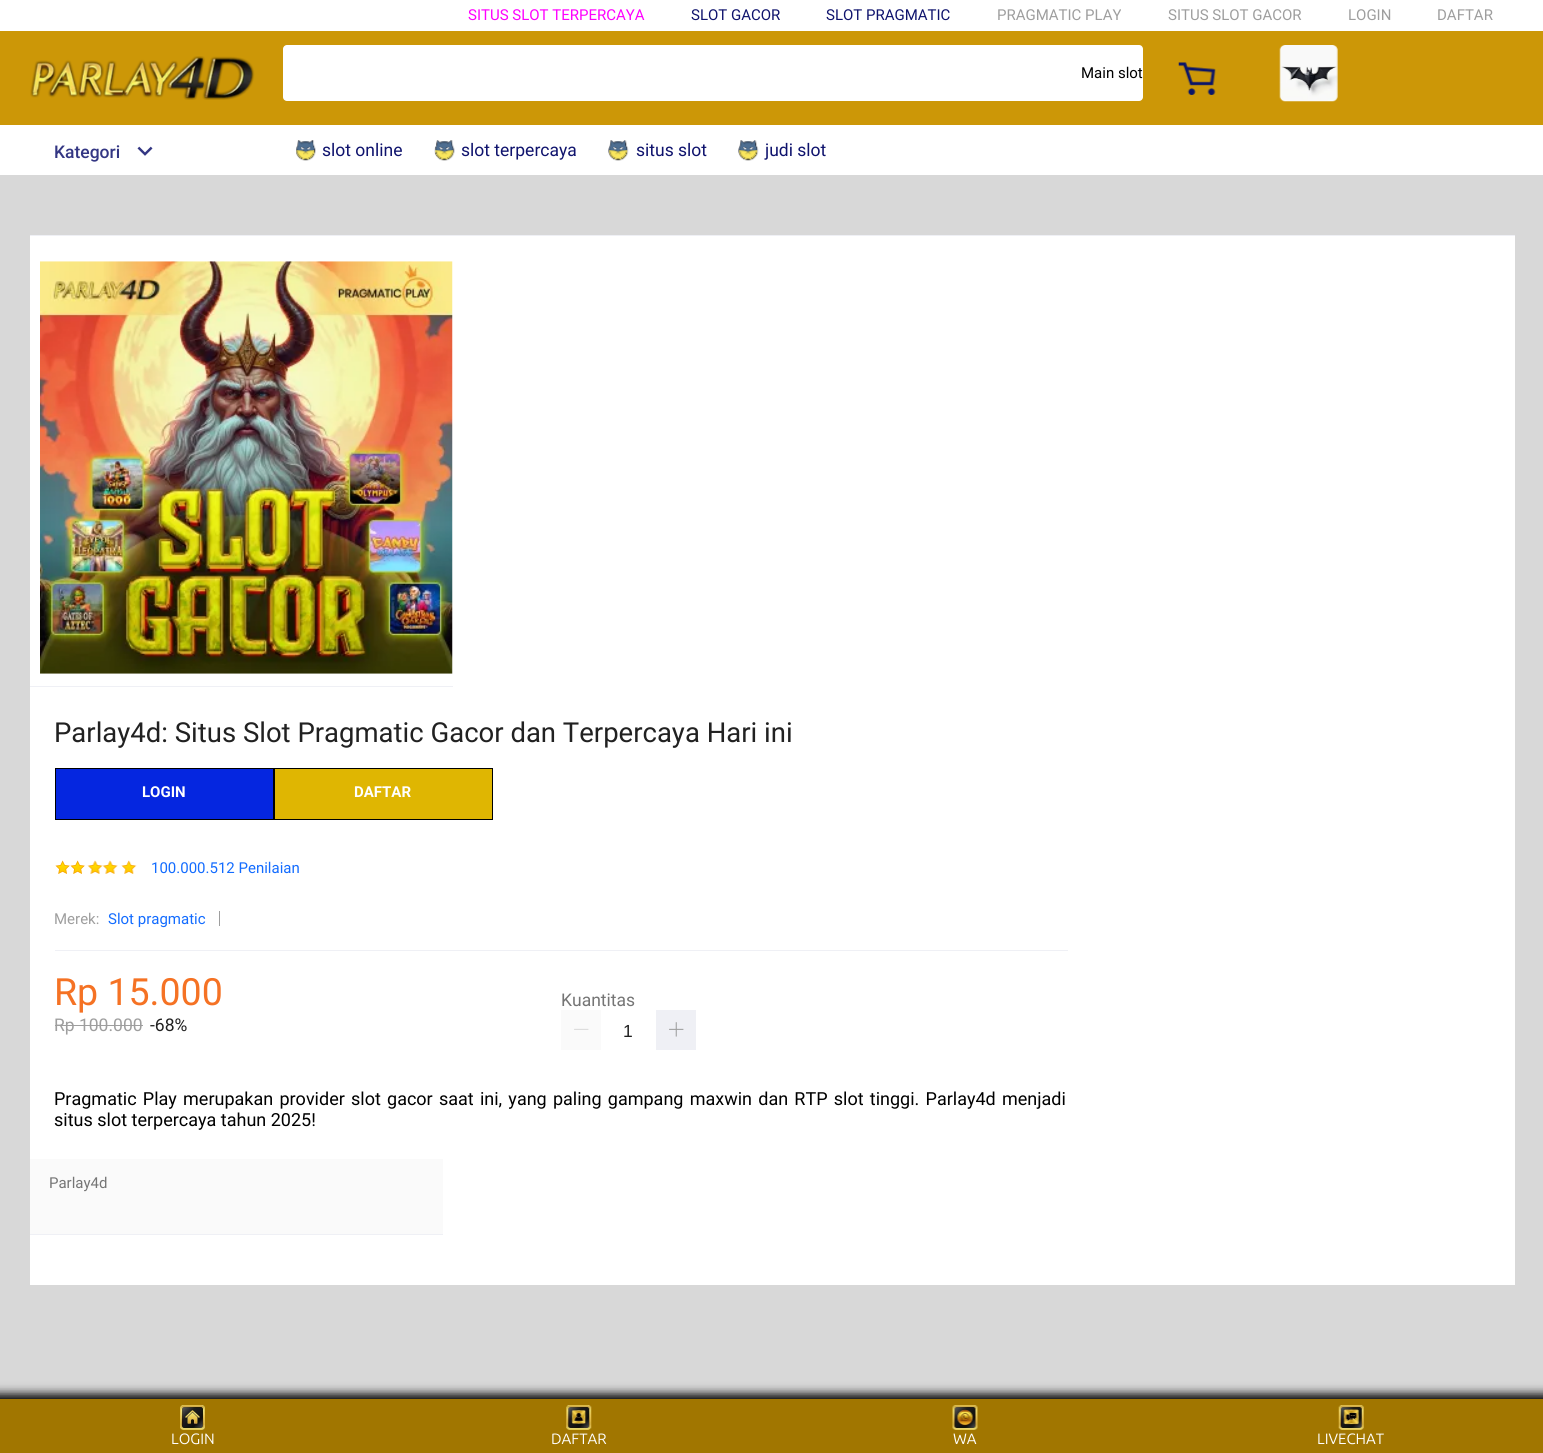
#include <cairo/cairo.h>
#include <math.h>
#include <stddef.h>


static void draw_spaced(cairo_t *cr, double x, double y, const char *s, double letter, double word) {
  cairo_move_to(cr, x, y);
  while (*s) {
    char ch[5] = {0};
    int n = 0;
    do ch[n++] = *s++; while ((*s & 0xC0) == 0x80);
    cairo_show_text(cr, ch);
    cairo_rel_move_to(cr, letter + word * (*ch == ' '), 0);
  }
}

static void rounded_rect(cairo_t *cr, double x, double y, double w, double h, double r) {
  cairo_new_sub_path(cr);
  cairo_arc(cr, x + w - r, y + h - r, r, 0, M_PI / 2);
  cairo_arc(cr, x + r, y + h - r, r, M_PI / 2, M_PI);
  cairo_arc(cr, x + r, y + r, r, M_PI, 1.5 * M_PI);
  cairo_arc(cr, x + w - r, y + r, r, 1.5 * M_PI, 2 * M_PI);
  cairo_close_path(cr);
}

static void draw_shadow(cairo_t *cr, double x, double y, double w, double h, double r, double blur, double alpha) {
  cairo_push_group_with_content(cr, CAIRO_CONTENT_ALPHA);
  cairo_set_operator(cr, CAIRO_OPERATOR_SOURCE);
  for (int i = 15; i >= -15 && fmin(w, h) + blur * i / 3 > 0; i -= 2) {
    double e = blur * i / 6;
    cairo_set_source_rgba(cr, 0, 0, 0, alpha * erfc((i - 1) / 8.5) / 2);
    rounded_rect(cr, x - e, y - e, w + 2 * e, h + 2 * e, fmax(0, fmin(r + e + blur * .6, fmin(w, h) / 2 + e)));
    cairo_fill(cr);
  }
  cairo_pattern_t *soft = cairo_pop_group(cr);
  cairo_mask(cr, soft);
  cairo_pattern_destroy(soft);
}

static void draw_image(cairo_t *cr, const char *path, double x, double y, double w, double h) {
  cairo_surface_t *image = cairo_image_surface_create_from_png(path);
  cairo_save(cr);
  cairo_set_source_surface(cr, image, x, y);
  cairo_rectangle(cr, x, y, w, h);
  cairo_fill(cr);
  cairo_restore(cr);
  cairo_surface_destroy(image);
}

static void draw(cairo_t *cr) {
  cairo_set_source_rgb(cr, 216 / 255.0, 216 / 255.0, 216 / 255.0);
  cairo_paint(cr);
  cairo_set_source_rgb(cr, 1, 1, 1);
  cairo_rectangle(cr, 0, 0, 1543, 175);
  cairo_fill(cr);
  cairo_set_source_rgb(cr, 204 / 255.0, 151 / 255.0, 7 / 255.0);
  cairo_rectangle(cr, 0, 31, 1543, 94);
  cairo_fill(cr);
  draw_image(cr, "images/1.png", 30, 56, 225, 44);
  cairo_set_source_rgb(cr, 1, 1, 1);
  rounded_rect(cr, 283, 45, 860, 56, 4);
  cairo_fill(cr);
  draw_image(cr, "images/2.png", 1178, 62, 38, 33);
  draw_image(cr, "images/3.png", 1279, 45, 59, 57);
  draw_image(cr, "images/4.png", 137, 146, 16, 10);
  draw_image(cr, "images/5.png", 296, 140, 20, 21);
  draw_image(cr, "images/6.png", 434, 140, 21, 21);
  draw_image(cr, "images/7.png", 608, 140, 21, 21);
  draw_image(cr, "images/7.png", 738, 140, 21, 21);
  cairo_set_source_rgb(cr, 239 / 255.0, 240 / 255.0, 245 / 255.0);
  cairo_rectangle(cr, 30, 235, 1485, 1);
  cairo_fill(cr);
  cairo_set_source_rgb(cr, 1, 1, 1);
  cairo_rectangle(cr, 30, 236, 1485, 1049);
  cairo_fill(cr);
  cairo_set_source_rgb(cr, 239 / 255.0, 240 / 255.0, 245 / 255.0);
  cairo_rectangle(cr, 30, 686, 423, 1);
  cairo_fill(cr);
  draw_image(cr, "images/8.png", 40, 261, 413, 413);
  cairo_set_source_rgb(cr, 5 / 255.0, 38 / 255.0, 224 / 255.0);
  cairo_rectangle(cr, 55.5, 768.5, 218, 51);
  cairo_fill_preserve(cr);
  cairo_set_source_rgb(cr, 0, 0, 0);
  cairo_set_line_width(cr, 1);
  cairo_stroke(cr);
  cairo_set_source_rgb(cr, 223 / 255.0, 182 / 255.0, 2 / 255.0);
  cairo_rectangle(cr, 274.5, 768.5, 218, 51);
  cairo_fill_preserve(cr);
  cairo_set_source_rgb(cr, 0, 0, 0);
  cairo_stroke(cr);
  draw_image(cr, "images/9.png", 55, 860, 15, 14);
  draw_image(cr, "images/9.png", 70, 860, 15, 14);
  draw_image(cr, "images/10.png", 87, 860, 16, 14);
  draw_image(cr, "images/11.png", 102, 860, 16, 14);
  draw_image(cr, "images/12.png", 121, 860, 16, 14);
  cairo_set_source_rgb(cr, 239 / 255.0, 240 / 255.0, 245 / 255.0);
  cairo_rectangle(cr, 55, 950, 1013, 1);
  cairo_fill(cr);
  cairo_set_source_rgb(cr, 158 / 255.0, 158 / 255.0, 158 / 255.0);
  cairo_rectangle(cr, 219, 911, 1, 15);
  cairo_fill(cr);
  cairo_rectangle(cr, 55, 1025, 88, 1);
  cairo_fill(cr);
  cairo_set_source_rgb(cr, 250 / 255.0, 250 / 255.0, 250 / 255.0);
  cairo_rectangle(cr, 561, 1010, 40, 40);
  cairo_fill(cr);
  draw_image(cr, "images/13.png", 574, 1028, 15, 2);
  cairo_set_source_rgb(cr, 239 / 255.0, 240 / 255.0, 245 / 255.0);
  cairo_rectangle(cr, 656, 1010, 40, 40);
  cairo_fill(cr);
  draw_image(cr, "images/14.png", 669, 1022, 15, 15);
  cairo_set_source_rgb(cr, 250 / 255.0, 250 / 255.0, 250 / 255.0);
  cairo_rectangle(cr, 30, 1159, 413, 75);
  cairo_fill(cr);
  cairo_set_source_rgb(cr, 239 / 255.0, 240 / 255.0, 245 / 255.0);
  cairo_rectangle(cr, 30, 1234, 413, 1);
  cairo_fill(cr);
  cairo_set_source_rgb(cr, 0, 0, 0);
  draw_shadow(cr, -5, 1394, 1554, 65, 0, 5, 1);
  cairo_set_source_rgb(cr, 161 / 255.0, 118 / 255.0, 0);
  cairo_rectangle(cr, 0, 1399, 1543, 54);
  cairo_fill(cr);
  draw_image(cr, "images/15.png", 180, 1405, 25, 25);
  draw_image(cr, "images/16.png", 566, 1405, 26, 25);
  draw_image(cr, "images/17.png", 952, 1405, 26, 25);
  draw_image(cr, "images/18.png", 1338, 1405, 26, 25);
  cairo_select_font_face(cr, "Roboto", CAIRO_FONT_SLANT_NORMAL, CAIRO_FONT_WEIGHT_NORMAL);
  cairo_set_font_size(cr, 15);
  cairo_set_source_rgb(cr, 1, 0, 1);
  cairo_move_to(cr, 468, 20);
  cairo_show_text(cr, "SITUS SLOT TERPERCAYA");
  cairo_set_source_rgb(cr, 15 / 255.0, 19 / 255.0, 109 / 255.0);
  cairo_move_to(cr, 691, 20);
  cairo_show_text(cr, "SLOT GACOR");
  cairo_move_to(cr, 826, 20);
  cairo_show_text(cr, "SLOT PRAGMATIC");
  cairo_set_source_rgb(cr, 158 / 255.0, 158 / 255.0, 158 / 255.0);
  cairo_move_to(cr, 997, 20);
  cairo_show_text(cr, "PRAGMATIC PLAY");
  cairo_move_to(cr, 1168, 20);
  cairo_show_text(cr, "SITUS SLOT GACOR");
  cairo_move_to(cr, 1348, 20);
  cairo_show_text(cr, "LOGIN");
  cairo_move_to(cr, 1437, 20);
  cairo_show_text(cr, "DAFTAR");
  cairo_set_source_rgb(cr, 0, 0, 0);
  cairo_move_to(cr, 1081, 78);
  cairo_show_text(cr, "Main slot");
  cairo_select_font_face(cr, "Roboto Medium", CAIRO_FONT_SLANT_NORMAL, CAIRO_FONT_WEIGHT_NORMAL);
  cairo_set_font_size(cr, 17.5);
  cairo_set_source_rgb(cr, 51 / 255.0, 54 / 255.0, 131 / 255.0);
  cairo_move_to(cr, 54, 158);
  cairo_show_text(cr, "Kategori");
  cairo_select_font_face(cr, "Roboto", CAIRO_FONT_SLANT_NORMAL, CAIRO_FONT_WEIGHT_NORMAL);
  cairo_set_source_rgb(cr, 15 / 255.0, 19 / 255.0, 109 / 255.0);
  cairo_move_to(cr, 322, 156);
  cairo_show_text(cr, "slot online");
  cairo_move_to(cr, 461, 156);
  cairo_show_text(cr, "slot terpercaya");
  cairo_move_to(cr, 636, 156);
  cairo_show_text(cr, "situs slot");
  cairo_move_to(cr, 765, 156);
  cairo_show_text(cr, "judi slot");
  cairo_set_font_size(cr, 27.5);
  cairo_set_source_rgb(cr, 33 / 255.0, 33 / 255.0, 33 / 255.0);
  cairo_move_to(cr, 54, 742);
  cairo_show_text(cr, "Parlay4d: Situs Slot Pragmatic Gacor dan Terpercaya Hari ini");
  cairo_select_font_face(cr, "Roboto", CAIRO_FONT_SLANT_NORMAL, CAIRO_FONT_WEIGHT_BOLD);
  cairo_set_font_size(cr, 15);
  cairo_set_source_rgb(cr, 1, 1, 1);
  cairo_move_to(cr, 142, 797);
  cairo_show_text(cr, "LOGIN");
  cairo_move_to(cr, 354, 797);
  cairo_show_text(cr, "DAFTAR");
  cairo_select_font_face(cr, "Roboto", CAIRO_FONT_SLANT_NORMAL, CAIRO_FONT_WEIGHT_NORMAL);
  cairo_set_source_rgb(cr, 19 / 255.0, 108 / 255.0, 1);
  cairo_move_to(cr, 151, 873);
  cairo_show_text(cr, "100.000.512 Penilaian");
  cairo_set_source_rgb(cr, 158 / 255.0, 158 / 255.0, 158 / 255.0);
  cairo_move_to(cr, 54, 924);
  cairo_show_text(cr, "Merek:");
  cairo_set_source_rgb(cr, 19 / 255.0, 108 / 255.0, 1);
  cairo_move_to(cr, 108, 924);
  cairo_show_text(cr, "Slot pragmatic");
  cairo_set_font_size(cr, 37.5);
  cairo_set_source_rgb(cr, 245 / 255.0, 114 / 255.0, 36 / 255.0);
  cairo_move_to(cr, 54, 1005);
  cairo_show_text(cr, "Rp 15.000");
  cairo_set_font_size(cr, 17.5);
  cairo_set_source_rgb(cr, 158 / 255.0, 158 / 255.0, 158 / 255.0);
  cairo_move_to(cr, 54, 1031);
  cairo_show_text(cr, "Rp 100.000");
  cairo_set_source_rgb(cr, 33 / 255.0, 33 / 255.0, 33 / 255.0);
  cairo_move_to(cr, 150, 1031);
  cairo_show_text(cr, "-68%");
  cairo_set_source_rgb(cr, 117 / 255.0, 117 / 255.0, 117 / 255.0);
  cairo_move_to(cr, 561, 1006);
  cairo_show_text(cr, "Kuantitas");
  cairo_select_font_face(cr, "Liberation Sans", CAIRO_FONT_SLANT_NORMAL, CAIRO_FONT_WEIGHT_NORMAL);
  cairo_set_source_rgb(cr, 33 / 255.0, 33 / 255.0, 33 / 255.0);
  cairo_move_to(cr, 623, 1037);
  cairo_show_text(cr, "1");
  cairo_select_font_face(cr, "Roboto", CAIRO_FONT_SLANT_NORMAL, CAIRO_FONT_WEIGHT_NORMAL);
  cairo_set_font_size(cr, 18);
  cairo_set_source_rgb(cr, 0, 0, 0);
  draw_spaced(cr, 54, 1105, "Pragmatic Play merupakan provider slot gacor saat ini, yang paling gampang maxwin dan RTP slot tinggi. Parlay4d menjadi", 0, 1.75);
  cairo_move_to(cr, 54, 1126);
  cairo_show_text(cr, "situs slot terpercaya tahun 2025!");
  cairo_set_font_size(cr, 15);
  cairo_set_source_rgb(cr, 117 / 255.0, 117 / 255.0, 117 / 255.0);
  cairo_move_to(cr, 49, 1188);
  cairo_show_text(cr, "Parlay4d");
  cairo_select_font_face(cr, "Ubuntu", CAIRO_FONT_SLANT_NORMAL, CAIRO_FONT_WEIGHT_NORMAL);
  cairo_set_source_rgb(cr, 1, 1, 1);
  cairo_move_to(cr, 171, 1444);
  cairo_show_text(cr, "LOGIN");
  cairo_move_to(cr, 551, 1444);
  cairo_show_text(cr, "DAFTAR");
  cairo_move_to(cr, 953, 1444);
  cairo_show_text(cr, "WA");
  cairo_move_to(cr, 1317, 1444);
  cairo_show_text(cr, "LIVECHAT");
}

int main(void) {
  cairo_surface_t *surface = cairo_image_surface_create(CAIRO_FORMAT_RGB24, 1543, 1453);
  cairo_t *cr = cairo_create(surface);
  cairo_font_options_t *options = cairo_font_options_create();
  cairo_font_options_set_hint_metrics(options, CAIRO_HINT_METRICS_OFF);
  cairo_font_options_set_hint_style(options, CAIRO_HINT_STYLE_NONE);
  cairo_set_font_options(cr, options);
  cairo_set_miter_limit(cr, 4);
  draw(cr);
  cairo_surface_write_to_png(surface, "out.png");
  cairo_font_options_destroy(options);
  cairo_destroy(cr);
  cairo_surface_destroy(surface);
  return 0;
}
